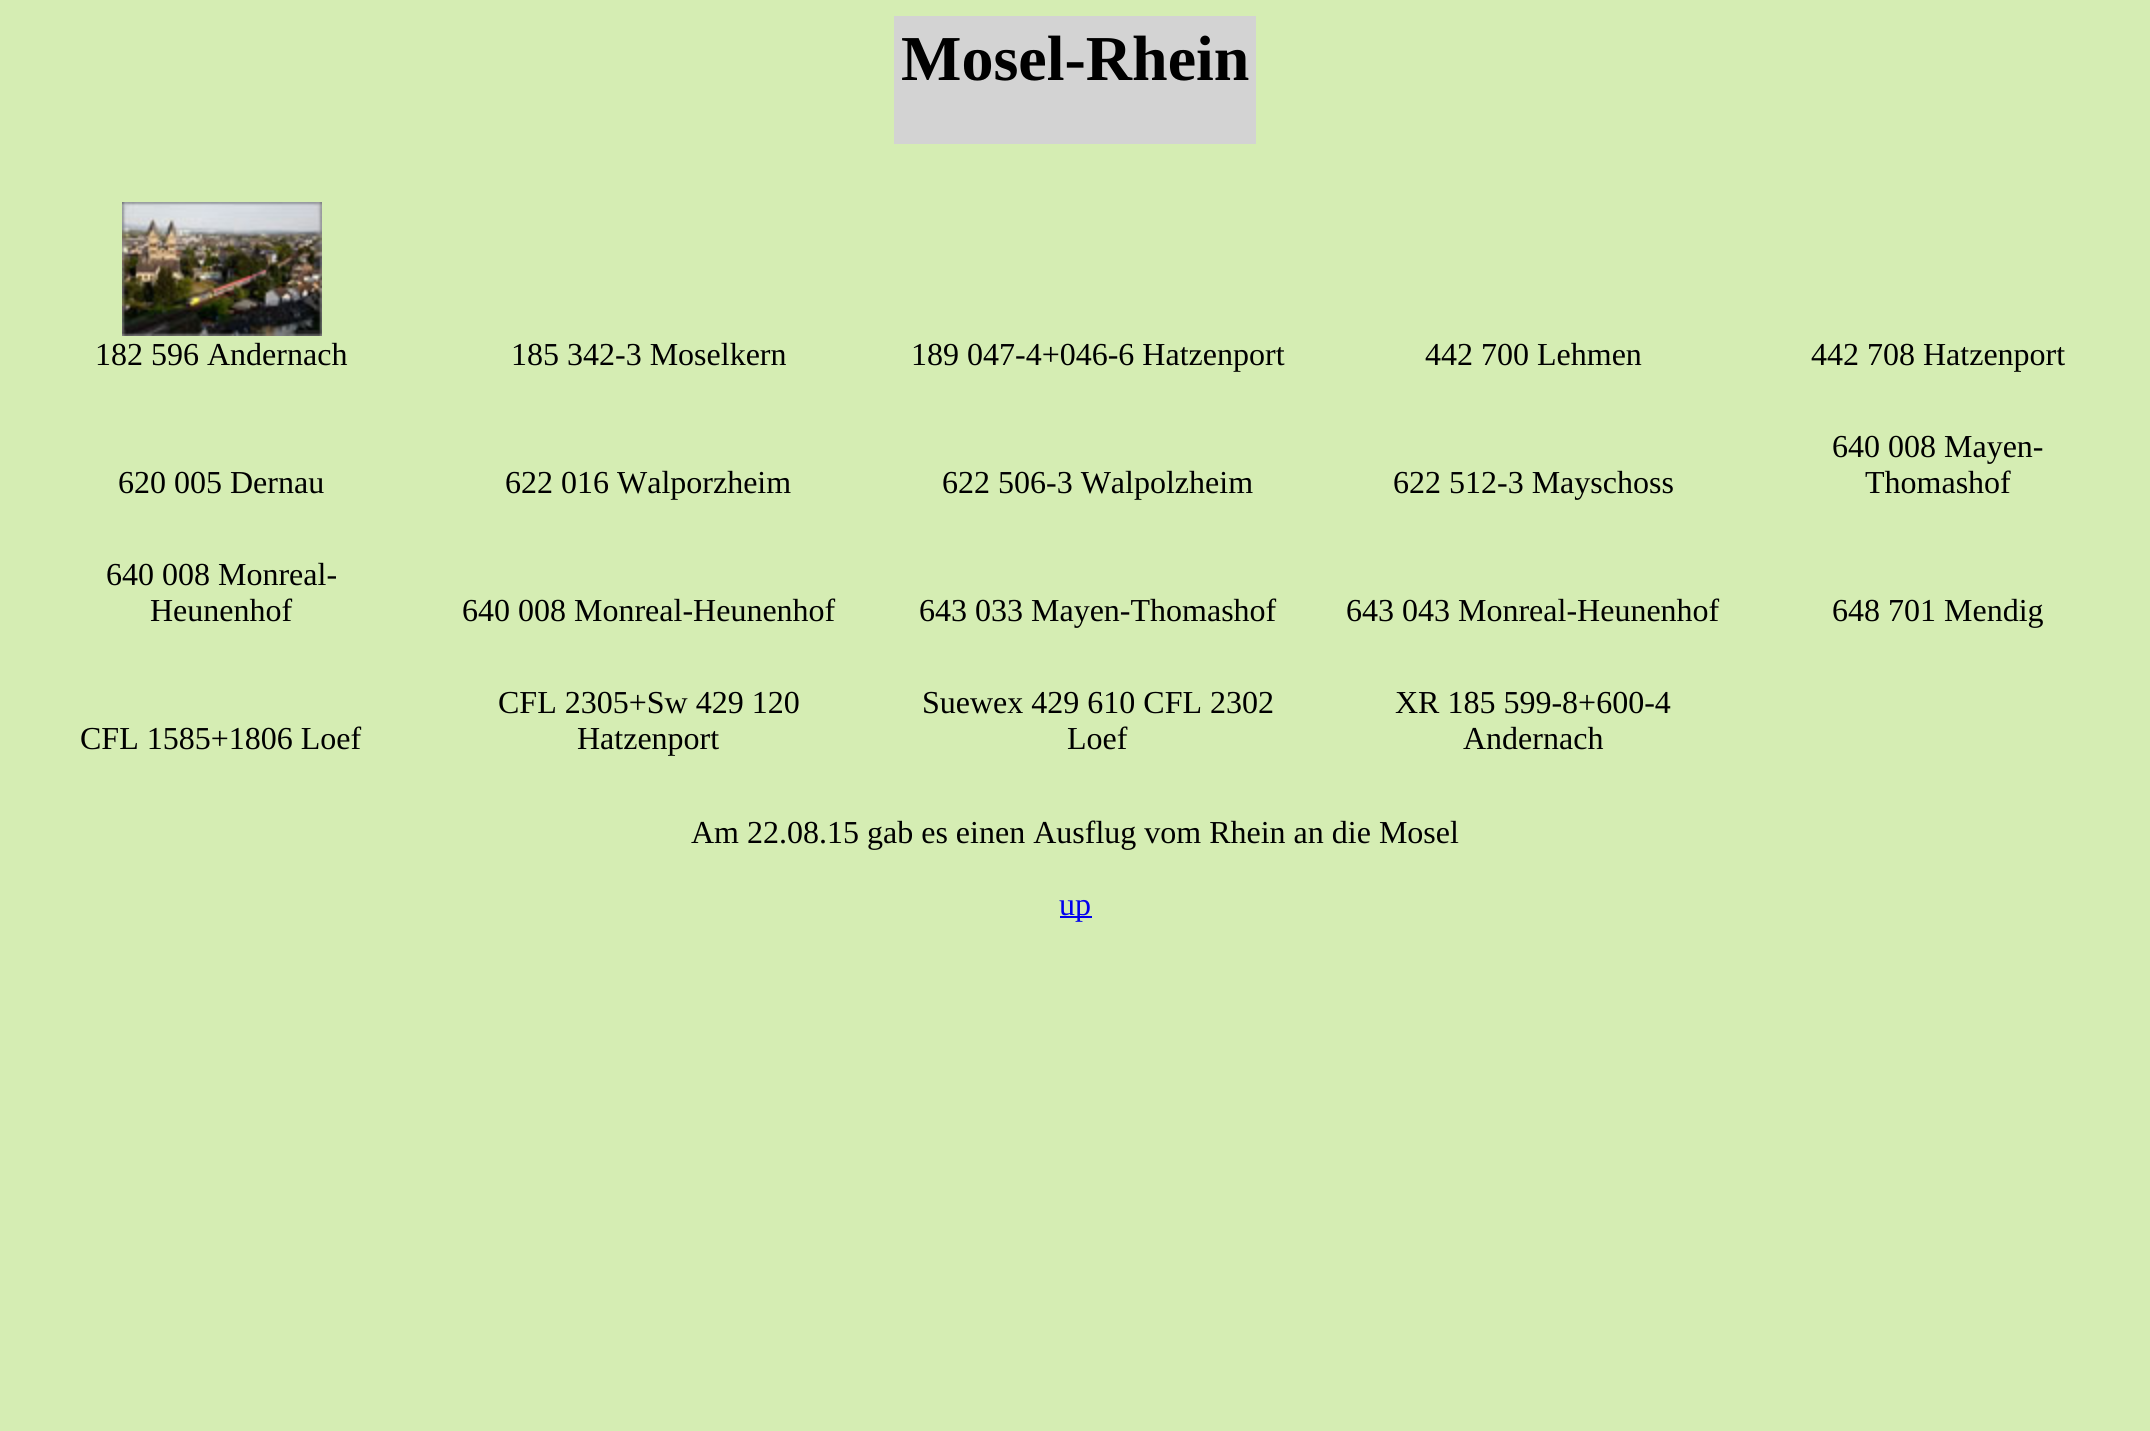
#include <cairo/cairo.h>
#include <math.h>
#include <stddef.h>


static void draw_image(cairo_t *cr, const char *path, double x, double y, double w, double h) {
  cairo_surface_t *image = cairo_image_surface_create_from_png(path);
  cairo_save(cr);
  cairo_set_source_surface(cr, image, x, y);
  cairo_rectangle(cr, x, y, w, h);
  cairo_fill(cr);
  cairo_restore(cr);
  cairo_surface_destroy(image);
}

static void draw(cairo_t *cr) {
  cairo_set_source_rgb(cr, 213 / 255.0, 237 / 255.0, 179 / 255.0);
  cairo_paint(cr);
  cairo_set_source_rgb(cr, 211 / 255.0, 211 / 255.0, 211 / 255.0);
  cairo_rectangle(cr, 894, 16, 362, 128);
  cairo_fill(cr);
  draw_image(cr, "images/1.png", 122, 202, 200, 134);
  cairo_set_source_rgb(cr, 0, 0, 238 / 255.0);
  cairo_rectangle(cr, 1060, 916, 32, 2);
  cairo_fill(cr);
  cairo_select_font_face(cr, "Liberation Serif", CAIRO_FONT_SLANT_NORMAL, CAIRO_FONT_WEIGHT_BOLD);
  cairo_set_font_size(cr, 64);
  cairo_set_source_rgb(cr, 0, 0, 0);
  cairo_move_to(cr, 901, 80);
  cairo_show_text(cr, "Mosel-Rhein");
  cairo_select_font_face(cr, "Liberation Serif", CAIRO_FONT_SLANT_NORMAL, CAIRO_FONT_WEIGHT_NORMAL);
  cairo_set_font_size(cr, 32);
  cairo_move_to(cr, 95, 365);
  cairo_show_text(cr, "182 596 Andernach");
  cairo_move_to(cr, 511, 365);
  cairo_show_text(cr, "185 342-3 Moselkern");
  cairo_move_to(cr, 911, 365);
  cairo_show_text(cr, "189 047-4+046-6 Hatzenport");
  cairo_move_to(cr, 1425, 365);
  cairo_show_text(cr, "442 700 Lehmen");
  cairo_move_to(cr, 1811, 365);
  cairo_show_text(cr, "442 708 Hatzenport");
  cairo_move_to(cr, 118, 493);
  cairo_show_text(cr, "620 005 Dernau");
  cairo_move_to(cr, 505, 493);
  cairo_show_text(cr, "622 016 Walporzheim");
  cairo_move_to(cr, 942, 493);
  cairo_show_text(cr, "622 506-3 Walpolzheim");
  cairo_move_to(cr, 1393, 493);
  cairo_show_text(cr, "622 512-3 Mayschoss");
  cairo_move_to(cr, 1832, 457);
  cairo_show_text(cr, "640 008 Mayen-");
  cairo_move_to(cr, 1865, 493);
  cairo_show_text(cr, "Thomashof");
  cairo_move_to(cr, 106, 585);
  cairo_show_text(cr, "640 008 Monreal-");
  cairo_move_to(cr, 150, 621);
  cairo_show_text(cr, "Heunenhof");
  cairo_move_to(cr, 462, 621);
  cairo_show_text(cr, "640 008 Monreal-Heunenhof");
  cairo_move_to(cr, 919, 621);
  cairo_show_text(cr, "643 033 Mayen-Thomashof");
  cairo_move_to(cr, 1346, 621);
  cairo_show_text(cr, "643 043 Monreal-Heunenhof");
  cairo_move_to(cr, 1832, 621);
  cairo_show_text(cr, "648 701 Mendig");
  cairo_move_to(cr, 80, 749);
  cairo_show_text(cr, "CFL 1585+1806 Loef");
  cairo_move_to(cr, 498, 713);
  cairo_show_text(cr, "CFL 2305+Sw 429 120");
  cairo_move_to(cr, 577, 749);
  cairo_show_text(cr, "Hatzenport");
  cairo_move_to(cr, 922, 713);
  cairo_show_text(cr, "Suewex 429 610 CFL 2302");
  cairo_move_to(cr, 1067, 749);
  cairo_show_text(cr, "Loef");
  cairo_move_to(cr, 1395, 713);
  cairo_show_text(cr, "XR 185 599-8+600-4");
  cairo_move_to(cr, 1463, 749);
  cairo_show_text(cr, "Andernach");
  cairo_move_to(cr, 691, 843);
  cairo_show_text(cr, "Am 22.08.15 gab es einen Ausflug vom Rhein an die Mosel");
  cairo_set_source_rgb(cr, 0, 0, 238 / 255.0);
  cairo_move_to(cr, 1059, 915);
  cairo_show_text(cr, "up");
}

int main(void) {
  cairo_surface_t *surface = cairo_image_surface_create(CAIRO_FORMAT_RGB24, 2150, 1431);
  cairo_t *cr = cairo_create(surface);
  cairo_font_options_t *options = cairo_font_options_create();
  cairo_font_options_set_hint_metrics(options, CAIRO_HINT_METRICS_OFF);
  cairo_font_options_set_hint_style(options, CAIRO_HINT_STYLE_NONE);
  cairo_set_font_options(cr, options);
  cairo_set_miter_limit(cr, 4);
  draw(cr);
  cairo_surface_write_to_png(surface, "out.png");
  cairo_font_options_destroy(options);
  cairo_destroy(cr);
  cairo_surface_destroy(surface);
  return 0;
}
